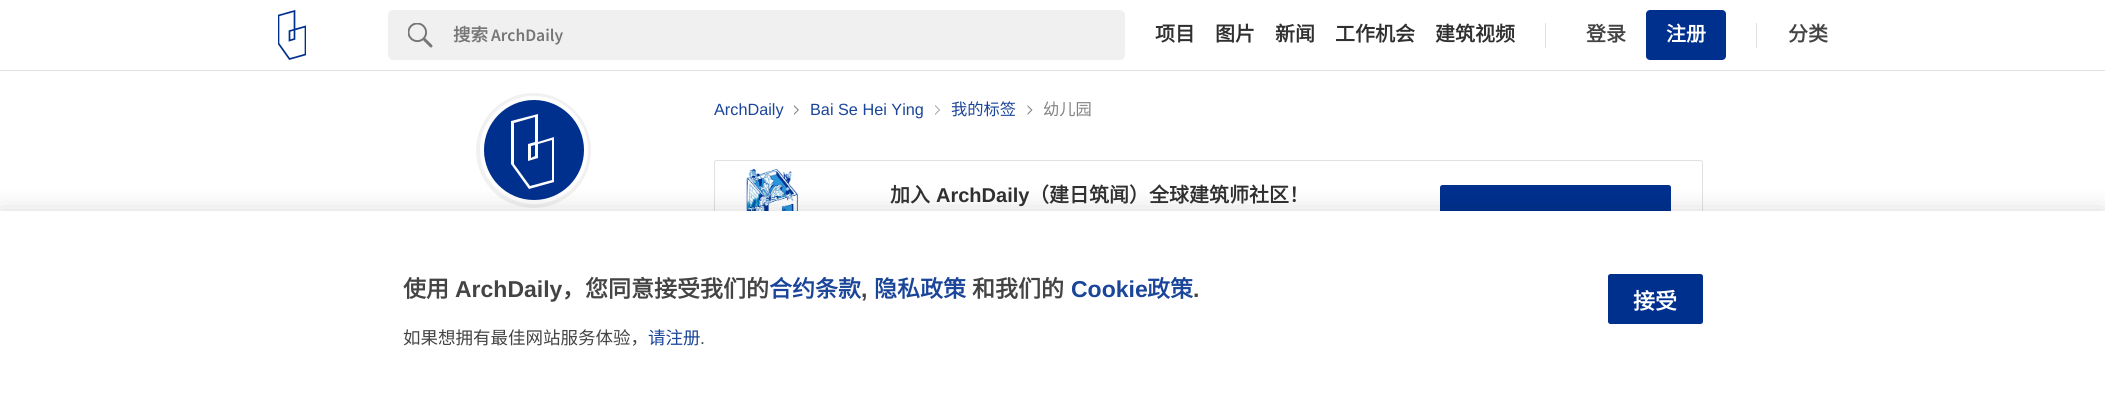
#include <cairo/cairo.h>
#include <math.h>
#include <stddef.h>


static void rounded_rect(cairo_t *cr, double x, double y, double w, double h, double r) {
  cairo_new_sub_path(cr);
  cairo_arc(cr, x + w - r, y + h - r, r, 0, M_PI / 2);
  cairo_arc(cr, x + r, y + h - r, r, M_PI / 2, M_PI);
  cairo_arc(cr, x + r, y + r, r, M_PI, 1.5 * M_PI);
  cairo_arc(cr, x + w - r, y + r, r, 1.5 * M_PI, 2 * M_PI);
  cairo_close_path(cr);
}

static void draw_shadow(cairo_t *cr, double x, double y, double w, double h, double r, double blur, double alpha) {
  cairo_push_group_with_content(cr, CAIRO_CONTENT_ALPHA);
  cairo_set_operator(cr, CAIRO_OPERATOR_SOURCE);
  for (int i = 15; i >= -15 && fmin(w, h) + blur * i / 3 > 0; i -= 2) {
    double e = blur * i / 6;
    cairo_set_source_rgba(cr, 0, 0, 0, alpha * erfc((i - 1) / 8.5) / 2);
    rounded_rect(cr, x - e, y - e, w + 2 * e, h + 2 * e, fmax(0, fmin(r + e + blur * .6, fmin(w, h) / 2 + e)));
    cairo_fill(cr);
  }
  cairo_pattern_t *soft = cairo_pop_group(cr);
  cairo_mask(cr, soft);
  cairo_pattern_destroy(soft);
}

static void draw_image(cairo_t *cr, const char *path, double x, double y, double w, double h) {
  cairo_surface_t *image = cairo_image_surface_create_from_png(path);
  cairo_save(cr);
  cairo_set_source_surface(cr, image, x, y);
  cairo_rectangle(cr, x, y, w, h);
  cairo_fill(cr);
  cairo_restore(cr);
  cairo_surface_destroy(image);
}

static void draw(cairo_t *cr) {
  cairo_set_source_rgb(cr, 1, 1, 1);
  cairo_paint(cr);
  cairo_set_source_rgb(cr, 225 / 255.0, 225 / 255.0, 225 / 255.0);
  cairo_rectangle(cr, 0, 70, 2105, 1);
  cairo_fill(cr);
  cairo_save(cr);
  cairo_rectangle(cr, 278, 10, 28, 50);
  cairo_clip(cr);
  cairo_new_path(cr);
  cairo_move_to(cr, 278.5, 43.5);
  cairo_line_to(cr, 278.5, 15.5);
  cairo_line_to(cr, 294.5, 11);
  cairo_line_to(cr, 294.5, 39);
  cairo_line_to(cr, 289.5, 40.5);
  cairo_line_to(cr, 289.5, 31);
  cairo_line_to(cr, 305.5, 26.5);
  cairo_line_to(cr, 305.5, 54.5);
  cairo_line_to(cr, 289.5, 59);
  cairo_close_path(cr);
  cairo_set_source_rgb(cr, 0, 48 / 255.0, 143 / 255.0);
  cairo_set_line_width(cr, 1.7);
  cairo_stroke(cr);
  cairo_restore(cr);
  cairo_set_source_rgb(cr, 240 / 255.0, 240 / 255.0, 240 / 255.0);
  rounded_rect(cr, 388, 10, 737, 50, 5);
  cairo_fill(cr);
  draw_image(cr, "images/1.png", 408, 23, 25, 25);
  cairo_set_source_rgb(cr, 225 / 255.0, 225 / 255.0, 225 / 255.0);
  cairo_rectangle(cr, 1545, 23, 1, 25);
  cairo_fill(cr);
  cairo_set_source_rgb(cr, 0, 48 / 255.0, 142 / 255.0);
  rounded_rect(cr, 1646, 10, 80, 50, 4);
  cairo_fill(cr);
  cairo_set_source_rgb(cr, 225 / 255.0, 225 / 255.0, 225 / 255.0);
  cairo_rectangle(cr, 1756, 23, 1, 25);
  cairo_fill(cr);
  cairo_arc(cr, 533.5, 150.5, 53.5, 0, 2 * M_PI);
  cairo_set_source_rgb(cr, 241 / 255.0, 241 / 255.0, 241 / 255.0);
  cairo_set_line_width(cr, 8);
  cairo_stroke(cr);
  cairo_arc(cr, 534, 150, 52, 0, 2 * M_PI);
  cairo_set_source_rgb(cr, 1, 1, 1);
  cairo_set_line_width(cr, 4);
  cairo_stroke(cr);
  cairo_set_source_rgb(cr, 0, 48 / 255.0, 142 / 255.0);
  cairo_arc(cr, 534, 150, 50, 0, 2 * M_PI);
  cairo_fill(cr);
  cairo_set_source_rgb(cr, 1, 1, 1);
  cairo_new_path(cr);
  cairo_move_to(cr, 529, 189);
  cairo_line_to(cr, 511, 164);
  cairo_line_to(cr, 511, 121);
  cairo_line_to(cr, 538, 114);
  cairo_line_to(cr, 538, 142);
  cairo_line_to(cr, 554, 137);
  cairo_line_to(cr, 554, 182);
  cairo_close_path(cr);
  cairo_move_to(cr, 514, 164);
  cairo_line_to(cr, 530, 186);
  cairo_line_to(cr, 552, 180);
  cairo_line_to(cr, 552, 140);
  cairo_line_to(cr, 538, 144);
  cairo_line_to(cr, 538, 158);
  cairo_line_to(cr, 528, 161);
  cairo_line_to(cr, 528, 144);
  cairo_line_to(cr, 535, 142);
  cairo_line_to(cr, 535, 117);
  cairo_line_to(cr, 514, 123);
  cairo_close_path(cr);
  cairo_move_to(cr, 531, 146);
  cairo_line_to(cr, 531, 158);
  cairo_line_to(cr, 535, 156);
  cairo_line_to(cr, 535, 145);
  cairo_close_path(cr);
  cairo_fill(cr);
  rounded_rect(cr, 714.5, 160.5, 988, 99, 2);
  cairo_set_source_rgb(cr, 225 / 255.0, 225 / 255.0, 225 / 255.0);
  cairo_set_line_width(cr, 1);
  cairo_stroke(cr);
  draw_image(cr, "images/2.png", 745, 168, 110, 43);
  cairo_set_source_rgb(cr, 0, 48 / 255.0, 142 / 255.0);
  rounded_rect(cr, 1440, 185, 231, 50, 2.5);
  cairo_fill(cr);
  cairo_set_source_rgb(cr, 0, 0, 0);
  draw_shadow(cr, 0, 211, 2105, 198, 0, 12.5, 0.15);
  cairo_set_source_rgb(cr, 1, 1, 1);
  cairo_rectangle(cr, 0, 211, 2105, 197);
  cairo_fill(cr);
  cairo_set_source_rgb(cr, 0, 48 / 255.0, 142 / 255.0);
  rounded_rect(cr, 1608, 274, 95, 50, 2.5);
  cairo_fill(cr);
  cairo_set_source_rgb(cr, 130 / 255.0, 130 / 255.0, 130 / 255.0);
  cairo_new_path(cr);
  cairo_move_to(cr, 794, 115);
  cairo_line_to(cr, 794, 105);
  cairo_line_to(cr, 799, 110);
  cairo_close_path(cr);
  cairo_fill(cr);
  cairo_set_source_rgb(cr, 1, 1, 1);
  cairo_new_path(cr);
  cairo_move_to(cr, 792.5, 115);
  cairo_line_to(cr, 792.5, 105);
  cairo_line_to(cr, 797.5, 110);
  cairo_close_path(cr);
  cairo_fill(cr);
  cairo_set_source_rgb(cr, 130 / 255.0, 130 / 255.0, 130 / 255.0);
  cairo_new_path(cr);
  cairo_move_to(cr, 935, 115);
  cairo_line_to(cr, 935, 105);
  cairo_line_to(cr, 940, 110);
  cairo_close_path(cr);
  cairo_fill(cr);
  cairo_set_source_rgb(cr, 1, 1, 1);
  cairo_new_path(cr);
  cairo_move_to(cr, 934, 115);
  cairo_line_to(cr, 934, 105);
  cairo_line_to(cr, 939, 110);
  cairo_close_path(cr);
  cairo_fill(cr);
  cairo_set_source_rgb(cr, 130 / 255.0, 130 / 255.0, 130 / 255.0);
  cairo_new_path(cr);
  cairo_move_to(cr, 1027.5, 115);
  cairo_line_to(cr, 1027.5, 105);
  cairo_line_to(cr, 1032.5, 110);
  cairo_close_path(cr);
  cairo_fill(cr);
  cairo_set_source_rgb(cr, 1, 1, 1);
  cairo_new_path(cr);
  cairo_move_to(cr, 1026, 115);
  cairo_line_to(cr, 1026, 105);
  cairo_line_to(cr, 1031, 110);
  cairo_close_path(cr);
  cairo_fill(cr);
  cairo_select_font_face(cr, "Noto Sans CJK SC", CAIRO_FONT_SLANT_NORMAL, CAIRO_FONT_WEIGHT_BOLD);
  cairo_set_font_size(cr, 17.5);
  cairo_set_source_rgb(cr, 118 / 255.0, 118 / 255.0, 118 / 255.0);
  cairo_move_to(cr, 453, 41);
  cairo_show_text(cr, "搜索");
  cairo_select_font_face(cr, "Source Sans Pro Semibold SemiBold", CAIRO_FONT_SLANT_NORMAL, CAIRO_FONT_WEIGHT_NORMAL);
  cairo_move_to(cr, 491, 41);
  cairo_show_text(cr, "ArchDaily");
  cairo_select_font_face(cr, "Noto Sans CJK SC", CAIRO_FONT_SLANT_NORMAL, CAIRO_FONT_WEIGHT_BOLD);
  cairo_set_font_size(cr, 20);
  cairo_set_source_rgb(cr, 48 / 255.0, 48 / 255.0, 48 / 255.0);
  cairo_move_to(cr, 1155, 41);
  cairo_show_text(cr, "项目");
  cairo_move_to(cr, 1215, 41);
  cairo_show_text(cr, "图片");
  cairo_move_to(cr, 1275, 41);
  cairo_show_text(cr, "新闻");
  cairo_move_to(cr, 1335, 41);
  cairo_show_text(cr, "工作机会");
  cairo_move_to(cr, 1435, 41);
  cairo_show_text(cr, "建筑视频");
  cairo_set_source_rgb(cr, 68 / 255.0, 68 / 255.0, 68 / 255.0);
  cairo_move_to(cr, 1586, 41);
  cairo_show_text(cr, "登录");
  cairo_set_source_rgb(cr, 1, 1, 1);
  cairo_move_to(cr, 1666, 41);
  cairo_show_text(cr, "注册");
  cairo_set_source_rgb(cr, 68 / 255.0, 68 / 255.0, 68 / 255.0);
  cairo_move_to(cr, 1788, 41);
  cairo_show_text(cr, "分类");
  cairo_set_font_size(cr, 23);
  cairo_move_to(cr, 403, 297);
  cairo_show_text(cr, "使用");
  cairo_select_font_face(cr, "Liberation Sans", CAIRO_FONT_SLANT_NORMAL, CAIRO_FONT_WEIGHT_BOLD);
  cairo_move_to(cr, 455, 297);
  cairo_show_text(cr, "ArchDaily");
  cairo_select_font_face(cr, "Noto Sans CJK SC", CAIRO_FONT_SLANT_NORMAL, CAIRO_FONT_WEIGHT_BOLD);
  cairo_move_to(cr, 562, 297);
  cairo_show_text(cr, "，您同意接受我们的");
  cairo_set_source_rgb(cr, 26 / 255.0, 69 / 255.0, 153 / 255.0);
  cairo_move_to(cr, 769, 297);
  cairo_show_text(cr, "合约条款");
  cairo_select_font_face(cr, "Liberation Sans", CAIRO_FONT_SLANT_NORMAL, CAIRO_FONT_WEIGHT_BOLD);
  cairo_set_source_rgb(cr, 68 / 255.0, 68 / 255.0, 68 / 255.0);
  cairo_move_to(cr, 861, 297);
  cairo_show_text(cr, ",");
  cairo_select_font_face(cr, "Noto Sans CJK SC", CAIRO_FONT_SLANT_NORMAL, CAIRO_FONT_WEIGHT_BOLD);
  cairo_set_source_rgb(cr, 26 / 255.0, 69 / 255.0, 153 / 255.0);
  cairo_move_to(cr, 874, 297);
  cairo_show_text(cr, "隐私政策");
  cairo_set_source_rgb(cr, 68 / 255.0, 68 / 255.0, 68 / 255.0);
  cairo_move_to(cr, 972, 297);
  cairo_show_text(cr, "和我们的");
  cairo_select_font_face(cr, "Liberation Sans", CAIRO_FONT_SLANT_NORMAL, CAIRO_FONT_WEIGHT_BOLD);
  cairo_set_source_rgb(cr, 26 / 255.0, 69 / 255.0, 153 / 255.0);
  cairo_move_to(cr, 1071, 297);
  cairo_show_text(cr, "Cookie");
  cairo_select_font_face(cr, "Noto Sans CJK SC", CAIRO_FONT_SLANT_NORMAL, CAIRO_FONT_WEIGHT_BOLD);
  cairo_move_to(cr, 1147, 297);
  cairo_show_text(cr, "政策");
  cairo_select_font_face(cr, "Liberation Sans", CAIRO_FONT_SLANT_NORMAL, CAIRO_FONT_WEIGHT_BOLD);
  cairo_set_source_rgb(cr, 68 / 255.0, 68 / 255.0, 68 / 255.0);
  cairo_move_to(cr, 1193, 297);
  cairo_show_text(cr, ".");
  cairo_select_font_face(cr, "Noto Sans CJK SC", CAIRO_FONT_SLANT_NORMAL, CAIRO_FONT_WEIGHT_NORMAL);
  cairo_set_font_size(cr, 17.5);
  cairo_move_to(cr, 403, 344);
  cairo_show_text(cr, "如果想拥有最佳网站服务体验，");
  cairo_set_source_rgb(cr, 26 / 255.0, 69 / 255.0, 153 / 255.0);
  cairo_move_to(cr, 648, 344);
  cairo_show_text(cr, "请注册");
  cairo_select_font_face(cr, "Liberation Sans", CAIRO_FONT_SLANT_NORMAL, CAIRO_FONT_WEIGHT_NORMAL);
  cairo_set_source_rgb(cr, 68 / 255.0, 68 / 255.0, 68 / 255.0);
  cairo_move_to(cr, 700, 344);
  cairo_show_text(cr, ".");
  cairo_select_font_face(cr, "Noto Sans CJK SC", CAIRO_FONT_SLANT_NORMAL, CAIRO_FONT_WEIGHT_BOLD);
  cairo_set_font_size(cr, 22);
  cairo_set_source_rgb(cr, 1, 1, 1);
  cairo_move_to(cr, 1633, 309);
  cairo_show_text(cr, "接受");
  cairo_select_font_face(cr, "Liberation Sans", CAIRO_FONT_SLANT_NORMAL, CAIRO_FONT_WEIGHT_NORMAL);
  cairo_set_font_size(cr, 16.25);
  cairo_set_source_rgb(cr, 26 / 255.0, 69 / 255.0, 153 / 255.0);
  cairo_move_to(cr, 714, 115);
  cairo_show_text(cr, "ArchDaily");
  cairo_move_to(cr, 810, 115);
  cairo_show_text(cr, "Bai Se Hei Ying");
  cairo_select_font_face(cr, "Noto Sans CJK SC", CAIRO_FONT_SLANT_NORMAL, CAIRO_FONT_WEIGHT_NORMAL);
  cairo_move_to(cr, 951, 115);
  cairo_show_text(cr, "我的标签");
  cairo_set_source_rgb(cr, 130 / 255.0, 130 / 255.0, 130 / 255.0);
  cairo_move_to(cr, 1043, 115);
  cairo_show_text(cr, "幼儿园");
  cairo_select_font_face(cr, "Noto Sans CJK SC", CAIRO_FONT_SLANT_NORMAL, CAIRO_FONT_WEIGHT_BOLD);
  cairo_set_font_size(cr, 20);
  cairo_set_source_rgb(cr, 48 / 255.0, 48 / 255.0, 48 / 255.0);
  cairo_move_to(cr, 890, 202);
  cairo_show_text(cr, "加入");
  cairo_select_font_face(cr, "Liberation Sans", CAIRO_FONT_SLANT_NORMAL, CAIRO_FONT_WEIGHT_BOLD);
  cairo_move_to(cr, 936, 202);
  cairo_show_text(cr, "ArchDaily");
  cairo_select_font_face(cr, "Noto Sans CJK SC", CAIRO_FONT_SLANT_NORMAL, CAIRO_FONT_WEIGHT_BOLD);
  cairo_move_to(cr, 1029, 202);
  cairo_show_text(cr, "（建日筑闻）全球建筑师社区！");
}

int main(void) {
  cairo_surface_t *surface = cairo_image_surface_create(CAIRO_FORMAT_RGB24, 2105, 408);
  cairo_t *cr = cairo_create(surface);
  cairo_font_options_t *options = cairo_font_options_create();
  cairo_font_options_set_hint_metrics(options, CAIRO_HINT_METRICS_OFF);
  cairo_font_options_set_hint_style(options, CAIRO_HINT_STYLE_NONE);
  cairo_set_font_options(cr, options);
  cairo_set_miter_limit(cr, 4);
  draw(cr);
  cairo_surface_write_to_png(surface, "out.png");
  cairo_font_options_destroy(options);
  cairo_destroy(cr);
  cairo_surface_destroy(surface);
  return 0;
}
